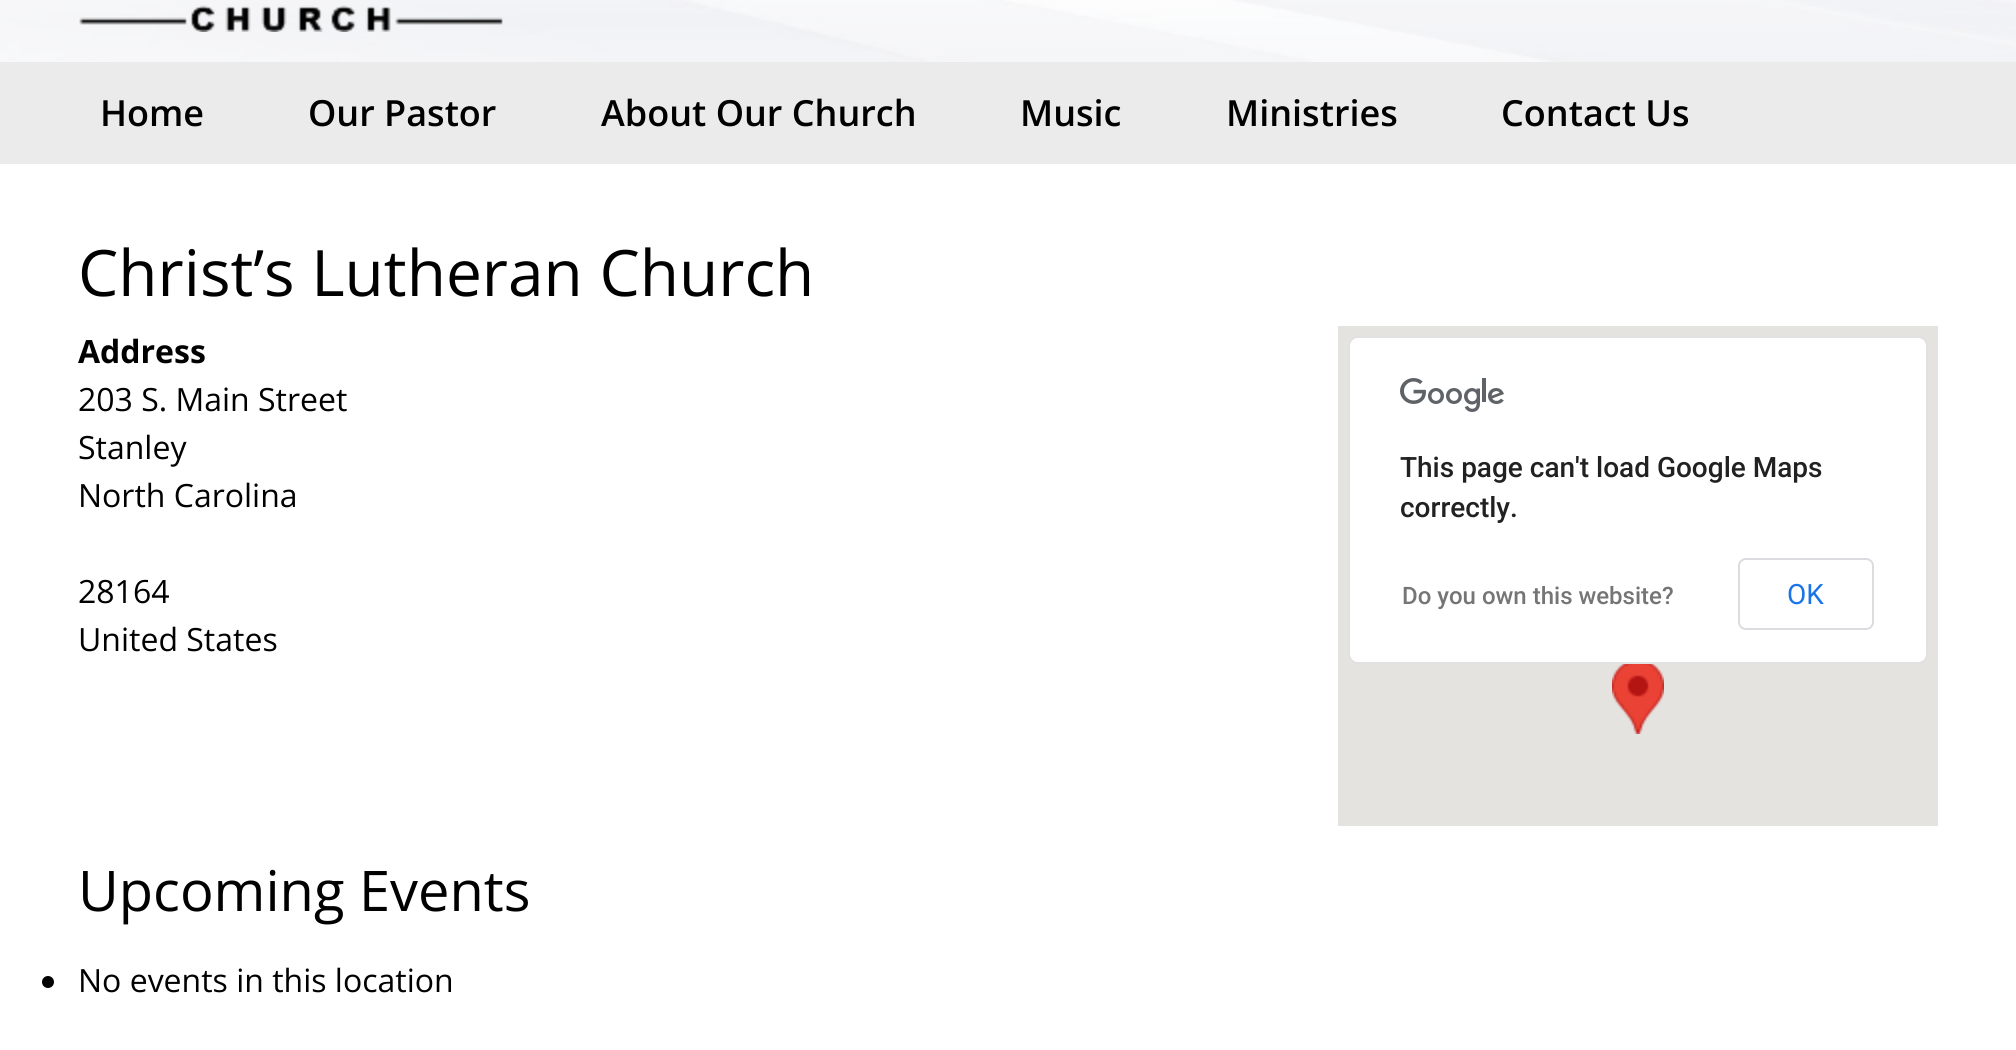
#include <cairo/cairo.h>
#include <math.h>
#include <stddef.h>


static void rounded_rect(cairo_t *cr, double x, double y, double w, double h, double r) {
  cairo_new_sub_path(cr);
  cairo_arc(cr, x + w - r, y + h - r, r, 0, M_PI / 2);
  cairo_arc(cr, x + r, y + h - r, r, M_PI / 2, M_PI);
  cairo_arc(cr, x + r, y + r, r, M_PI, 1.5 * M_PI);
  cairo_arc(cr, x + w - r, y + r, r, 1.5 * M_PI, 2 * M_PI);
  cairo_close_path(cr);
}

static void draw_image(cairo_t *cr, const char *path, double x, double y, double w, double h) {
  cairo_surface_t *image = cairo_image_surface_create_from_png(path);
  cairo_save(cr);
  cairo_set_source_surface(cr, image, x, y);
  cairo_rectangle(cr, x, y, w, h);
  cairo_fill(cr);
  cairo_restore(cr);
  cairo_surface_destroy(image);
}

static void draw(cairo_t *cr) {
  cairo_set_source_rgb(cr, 1, 1, 1);
  cairo_paint(cr);
  draw_image(cr, "images/1.png", 0, 0, 2016, 62);
  draw_image(cr, "images/2.png", 79, 5, 424, 27);
  cairo_set_source_rgb(cr, 235 / 255.0, 235 / 255.0, 235 / 255.0);
  cairo_rectangle(cr, 0, 62, 2016, 102);
  cairo_fill(cr);
  cairo_set_source_rgb(cr, 229 / 255.0, 227 / 255.0, 223 / 255.0);
  cairo_rectangle(cr, 1338, 326, 600, 500);
  cairo_fill(cr);
  draw_image(cr, "images/3.png", 1612, 664, 52, 70);
  cairo_set_source_rgb(cr, 1, 1, 1);
  rounded_rect(cr, 1348, 336, 580, 328, 10);
  cairo_fill(cr);
  rounded_rect(cr, 1349, 337, 578, 326, 9);
  cairo_set_source_rgba(cr, 0, 0, 0, 0.12);
  cairo_stroke(cr);
  draw_image(cr, "images/4.png", 1400, 378, 104, 34);
  rounded_rect(cr, 1739, 559, 134, 70, 7);
  cairo_set_source_rgb(cr, 218 / 255.0, 220 / 255.0, 224 / 255.0);
  cairo_stroke(cr);
  cairo_set_source_rgb(cr, 0, 0, 0);
  cairo_arc(cr, 48, 982, 6, 0, 2 * M_PI);
  cairo_fill(cr);
  cairo_select_font_face(cr, "Open Sans SemiBold", CAIRO_FONT_SLANT_NORMAL, CAIRO_FONT_WEIGHT_NORMAL);
  cairo_set_font_size(cr, 36);
  cairo_move_to(cr, 100, 126);
  cairo_show_text(cr, "Home");
  cairo_move_to(cr, 308, 126);
  cairo_show_text(cr, "Our Pastor");
  cairo_move_to(cr, 601, 126);
  cairo_show_text(cr, "About Our Church");
  cairo_move_to(cr, 1020, 126);
  cairo_show_text(cr, "Music");
  cairo_move_to(cr, 1226, 126);
  cairo_show_text(cr, "Ministries");
  cairo_move_to(cr, 1501, 126);
  cairo_show_text(cr, "Contact Us");
  cairo_select_font_face(cr, "Open Sans", CAIRO_FONT_SLANT_NORMAL, CAIRO_FONT_WEIGHT_NORMAL);
  cairo_set_font_size(cr, 64);
  cairo_move_to(cr, 78, 296);
  cairo_show_text(cr, "Christ’s Lutheran Church");
  cairo_select_font_face(cr, "Open Sans", CAIRO_FONT_SLANT_NORMAL, CAIRO_FONT_WEIGHT_BOLD);
  cairo_set_font_size(cr, 32);
  cairo_move_to(cr, 78, 363);
  cairo_show_text(cr, "Address");
  cairo_select_font_face(cr, "Open Sans", CAIRO_FONT_SLANT_NORMAL, CAIRO_FONT_WEIGHT_NORMAL);
  cairo_move_to(cr, 78, 411);
  cairo_show_text(cr, "203 S. Main Street");
  cairo_move_to(cr, 78, 459);
  cairo_show_text(cr, "Stanley");
  cairo_move_to(cr, 78, 507);
  cairo_show_text(cr, "North Carolina");
  cairo_move_to(cr, 78, 603);
  cairo_show_text(cr, "28164");
  cairo_move_to(cr, 78, 651);
  cairo_show_text(cr, "United States");
  cairo_select_font_face(cr, "Roboto Medium", CAIRO_FONT_SLANT_NORMAL, CAIRO_FONT_WEIGHT_NORMAL);
  cairo_set_font_size(cr, 28);
  cairo_set_source_rgb(cr, 33 / 255.0, 33 / 255.0, 33 / 255.0);
  cairo_move_to(cr, 1400, 477);
  cairo_show_text(cr, "This page can't load Google Maps");
  cairo_move_to(cr, 1400, 517);
  cairo_show_text(cr, "correctly.");
  cairo_set_font_size(cr, 24);
  cairo_set_source_rgb(cr, 117 / 255.0, 117 / 255.0, 117 / 255.0);
  cairo_move_to(cr, 1402, 604);
  cairo_show_text(cr, "Do you own this website?");
  cairo_select_font_face(cr, "Roboto", CAIRO_FONT_SLANT_NORMAL, CAIRO_FONT_WEIGHT_NORMAL);
  cairo_set_font_size(cr, 28);
  cairo_set_source_rgb(cr, 26 / 255.0, 115 / 255.0, 232 / 255.0);
  cairo_move_to(cr, 1787, 604);
  cairo_show_text(cr, "OK");
  cairo_select_font_face(cr, "Open Sans", CAIRO_FONT_SLANT_NORMAL, CAIRO_FONT_WEIGHT_NORMAL);
  cairo_set_font_size(cr, 56);
  cairo_set_source_rgb(cr, 0, 0, 0);
  cairo_move_to(cr, 78, 911);
  cairo_show_text(cr, "Upcoming Events");
  cairo_set_font_size(cr, 32);
  cairo_move_to(cr, 78, 992);
  cairo_show_text(cr, "No events in this location");
}

int main(void) {
  cairo_surface_t *surface = cairo_image_surface_create(CAIRO_FORMAT_RGB24, 2016, 1050);
  cairo_t *cr = cairo_create(surface);
  cairo_font_options_t *options = cairo_font_options_create();
  cairo_font_options_set_hint_metrics(options, CAIRO_HINT_METRICS_OFF);
  cairo_font_options_set_hint_style(options, CAIRO_HINT_STYLE_NONE);
  cairo_set_font_options(cr, options);
  cairo_set_miter_limit(cr, 4);
  draw(cr);
  cairo_surface_write_to_png(surface, "out.png");
  cairo_font_options_destroy(options);
  cairo_destroy(cr);
  cairo_surface_destroy(surface);
  return 0;
}
